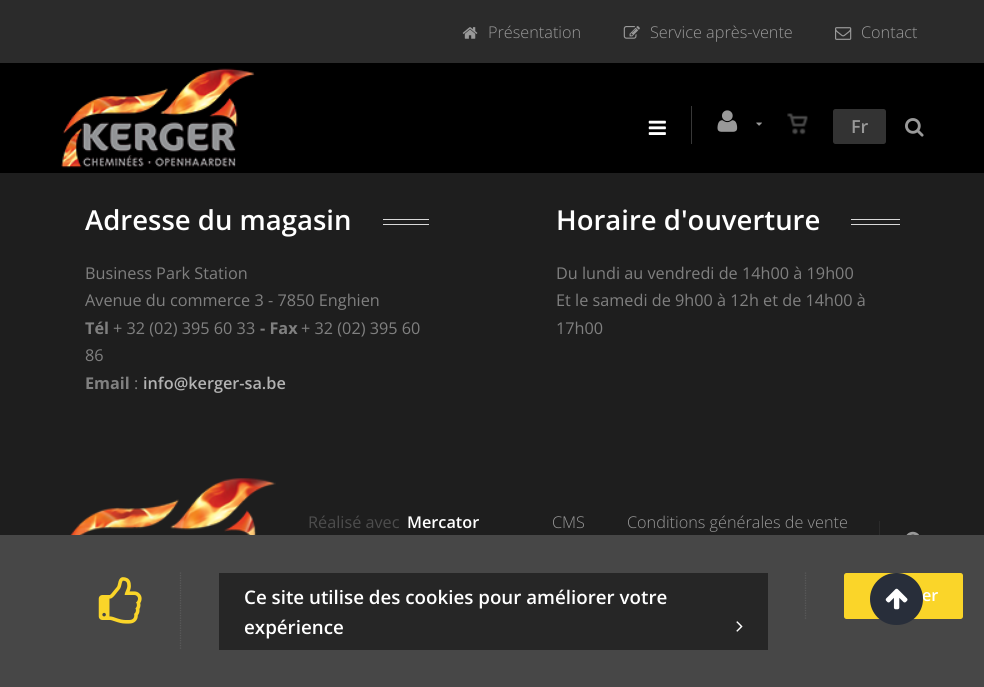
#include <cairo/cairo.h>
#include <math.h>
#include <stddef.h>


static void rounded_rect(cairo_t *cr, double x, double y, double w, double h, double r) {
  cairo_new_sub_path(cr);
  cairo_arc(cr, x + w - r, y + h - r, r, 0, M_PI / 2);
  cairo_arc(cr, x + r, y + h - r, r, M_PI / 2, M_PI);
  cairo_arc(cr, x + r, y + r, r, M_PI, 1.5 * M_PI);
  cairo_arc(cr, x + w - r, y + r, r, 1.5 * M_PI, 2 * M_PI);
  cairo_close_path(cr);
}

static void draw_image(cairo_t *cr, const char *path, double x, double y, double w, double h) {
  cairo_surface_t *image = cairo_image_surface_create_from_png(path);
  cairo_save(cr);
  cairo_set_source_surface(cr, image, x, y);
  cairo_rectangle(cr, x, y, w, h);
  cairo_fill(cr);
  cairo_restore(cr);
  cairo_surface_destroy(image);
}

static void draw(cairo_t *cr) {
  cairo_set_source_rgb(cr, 30 / 255.0, 30 / 255.0, 30 / 255.0);
  cairo_paint(cr);
  cairo_set_source_rgb(cr, 0, 0, 0);
  cairo_rectangle(cr, 0, 63, 984, 110);
  cairo_fill(cr);
  cairo_set_source_rgb(cr, 43 / 255.0, 43 / 255.0, 43 / 255.0);
  cairo_rectangle(cr, 0, 0, 984, 63);
  cairo_fill(cr);
  draw_image(cr, "images/1.png", 462, 27, 16, 12);
  draw_image(cr, "images/2.png", 623, 26, 17, 13);
  draw_image(cr, "images/3.png", 835, 27, 17, 13);
  draw_image(cr, "images/4.png", 61, 68, 194, 100);
  draw_image(cr, "images/5.png", 648, 120, 18, 15);
  cairo_set_source_rgb(cr, 56 / 255.0, 56 / 255.0, 56 / 255.0);
  cairo_rectangle(cr, 691, 106, 1, 38);
  cairo_fill(cr);
  draw_image(cr, "images/6.png", 717, 110, 21, 22);
  draw_image(cr, "images/7.png", 756, 122, 6, 4);
  draw_image(cr, "images/8.png", 787, 113, 21, 22);
  cairo_set_source_rgb(cr, 51 / 255.0, 51 / 255.0, 51 / 255.0);
  rounded_rect(cr, 833, 109, 53, 35, 2.5);
  cairo_fill(cr);
  draw_image(cr, "images/9.png", 905, 118, 19, 19);
  cairo_set_source_rgb(cr, 217 / 255.0, 217 / 255.0, 217 / 255.0);
  cairo_rectangle(cr, 383, 219, 46, 1);
  cairo_fill(cr);
  cairo_rectangle(cr, 383, 224, 46, 1);
  cairo_fill(cr);
  cairo_rectangle(cr, 851, 219, 49, 1);
  cairo_fill(cr);
  cairo_rectangle(cr, 851, 224, 49, 1);
  cairo_fill(cr);
  draw_image(cr, "images/10.png", 70, 478, 206, 57);
  cairo_set_source_rgb(cr, 43 / 255.0, 43 / 255.0, 43 / 255.0);
  cairo_rectangle(cr, 879, 521, 1, 14);
  cairo_fill(cr);
  draw_image(cr, "images/11.png", 906, 531, 13, 4);
  cairo_set_source_rgb(cr, 71 / 255.0, 71 / 255.0, 71 / 255.0);
  cairo_rectangle(cr, 0, 535, 984, 152);
  cairo_fill(cr);
  draw_image(cr, "images/13.png", 98, 577, 44, 47);
  cairo_new_path(cr);
  cairo_move_to(cr, 180.5, 572.5);
  cairo_line_to(cr, 180.5, 650);
  cairo_set_source_rgb(cr, 89 / 255.0, 89 / 255.0, 89 / 255.0);
  cairo_set_line_width(cr, 1.2);
  cairo_set_dash(cr, (double[]){1.25, 1.25}, 2, 0);
  cairo_stroke(cr);
  cairo_set_source_rgb(cr, 38 / 255.0, 38 / 255.0, 38 / 255.0);
  cairo_rectangle(cr, 219, 573, 549, 77);
  cairo_fill(cr);
  draw_image(cr, "images/14.png", 736, 621, 7, 11);
  cairo_new_path(cr);
  cairo_move_to(cr, 805.5, 572.5);
  cairo_line_to(cr, 805.5, 619);
  cairo_set_source_rgb(cr, 89 / 255.0, 89 / 255.0, 89 / 255.0);
  cairo_stroke(cr);
  cairo_set_source_rgb(cr, 250 / 255.0, 213 / 255.0, 41 / 255.0);
  rounded_rect(cr, 844, 573, 119, 46, 2.5);
  cairo_fill(cr);
  cairo_select_font_face(cr, "Open Sans Light", CAIRO_FONT_SLANT_NORMAL, CAIRO_FONT_WEIGHT_NORMAL);
  cairo_set_font_size(cr, 16.25);
  cairo_set_source_rgb(cr, 153 / 255.0, 153 / 255.0, 153 / 255.0);
  cairo_move_to(cr, 488, 38);
  cairo_show_text(cr, "Présentation");
  cairo_move_to(cr, 650, 38);
  cairo_show_text(cr, "Service après-vente");
  cairo_move_to(cr, 861, 38);
  cairo_show_text(cr, "Contact");
  cairo_select_font_face(cr, "Open Sans SemiBold", CAIRO_FONT_SLANT_NORMAL, CAIRO_FONT_WEIGHT_NORMAL);
  cairo_set_font_size(cr, 18);
  cairo_move_to(cr, 851, 133);
  cairo_show_text(cr, "Fr");
  cairo_set_font_size(cr, 27.5);
  cairo_set_source_rgb(cr, 1, 1, 1);
  cairo_move_to(cr, 85, 230);
  cairo_show_text(cr, "Adresse du magasin");
  cairo_select_font_face(cr, "Open Sans", CAIRO_FONT_SLANT_NORMAL, CAIRO_FONT_WEIGHT_NORMAL);
  cairo_set_font_size(cr, 16.25);
  cairo_set_source_rgb(cr, 128 / 255.0, 128 / 255.0, 128 / 255.0);
  cairo_move_to(cr, 85, 279);
  cairo_show_text(cr, "Business Park Station");
  cairo_move_to(cr, 85, 306);
  cairo_show_text(cr, "Avenue du commerce 3 - 7850 Enghien");
  cairo_select_font_face(cr, "Open Sans", CAIRO_FONT_SLANT_NORMAL, CAIRO_FONT_WEIGHT_BOLD);
  cairo_move_to(cr, 85, 334);
  cairo_show_text(cr, "Tél");
  cairo_select_font_face(cr, "Open Sans", CAIRO_FONT_SLANT_NORMAL, CAIRO_FONT_WEIGHT_NORMAL);
  cairo_move_to(cr, 113, 334);
  cairo_show_text(cr, "+ 32 (02) 395 60 33");
  cairo_select_font_face(cr, "Open Sans", CAIRO_FONT_SLANT_NORMAL, CAIRO_FONT_WEIGHT_BOLD);
  cairo_move_to(cr, 260, 334);
  cairo_show_text(cr, "- Fax");
  cairo_select_font_face(cr, "Open Sans", CAIRO_FONT_SLANT_NORMAL, CAIRO_FONT_WEIGHT_NORMAL);
  cairo_move_to(cr, 301, 334);
  cairo_show_text(cr, "+ 32 (02) 395 60");
  cairo_move_to(cr, 85, 361);
  cairo_show_text(cr, "86");
  cairo_select_font_face(cr, "Open Sans", CAIRO_FONT_SLANT_NORMAL, CAIRO_FONT_WEIGHT_BOLD);
  cairo_move_to(cr, 85, 389);
  cairo_show_text(cr, "Email");
  cairo_select_font_face(cr, "Open Sans", CAIRO_FONT_SLANT_NORMAL, CAIRO_FONT_WEIGHT_NORMAL);
  cairo_move_to(cr, 134, 389);
  cairo_show_text(cr, ":");
  cairo_select_font_face(cr, "Open Sans SemiBold", CAIRO_FONT_SLANT_NORMAL, CAIRO_FONT_WEIGHT_NORMAL);
  cairo_set_source_rgb(cr, 179 / 255.0, 179 / 255.0, 179 / 255.0);
  cairo_move_to(cr, 143, 389);
  cairo_show_text(cr, "info@kerger-sa.be");
  cairo_set_font_size(cr, 27.5);
  cairo_set_source_rgb(cr, 1, 1, 1);
  cairo_move_to(cr, 556, 230);
  cairo_show_text(cr, "Horaire d'ouverture");
  cairo_select_font_face(cr, "Open Sans", CAIRO_FONT_SLANT_NORMAL, CAIRO_FONT_WEIGHT_NORMAL);
  cairo_set_font_size(cr, 16.25);
  cairo_set_source_rgb(cr, 128 / 255.0, 128 / 255.0, 128 / 255.0);
  cairo_move_to(cr, 556, 279);
  cairo_show_text(cr, "Du lundi au vendredi de 14h00 à 19h00");
  cairo_move_to(cr, 556, 306);
  cairo_show_text(cr, "Et le samedi de 9h00 à 12h et de 14h00 à");
  cairo_move_to(cr, 556, 334);
  cairo_show_text(cr, "17h00");
  cairo_set_source_rgb(cr, 77 / 255.0, 77 / 255.0, 77 / 255.0);
  cairo_move_to(cr, 308, 528);
  cairo_show_text(cr, "Réalisé avec");
  cairo_select_font_face(cr, "Open Sans SemiBold", CAIRO_FONT_SLANT_NORMAL, CAIRO_FONT_WEIGHT_NORMAL);
  cairo_set_source_rgb(cr, 1, 1, 1);
  cairo_move_to(cr, 407, 528);
  cairo_show_text(cr, "Mercator");
  cairo_select_font_face(cr, "Open Sans Light", CAIRO_FONT_SLANT_NORMAL, CAIRO_FONT_WEIGHT_NORMAL);
  cairo_set_source_rgb(cr, 153 / 255.0, 153 / 255.0, 153 / 255.0);
  cairo_move_to(cr, 552, 528);
  cairo_show_text(cr, "CMS");
  cairo_move_to(cr, 627, 528);
  cairo_show_text(cr, "Conditions générales de vente");
  cairo_select_font_face(cr, "Open Sans SemiBold", CAIRO_FONT_SLANT_NORMAL, CAIRO_FONT_WEIGHT_NORMAL);
  cairo_set_font_size(cr, 18.75);
  cairo_set_source_rgb(cr, 1, 1, 1);
  cairo_move_to(cr, 244, 604);
  cairo_show_text(cr, "Ce site utilise des cookies pour améliorer votre");
  cairo_move_to(cr, 244, 634);
  cairo_show_text(cr, "expérience");
  cairo_set_font_size(cr, 16.25);
  cairo_move_to(cr, 922, 601);
  cairo_show_text(cr, "er");
  cairo_set_source_rgb(cr, 40 / 255.0, 46 / 255.0, 58 / 255.0);
  rounded_rect(cr, 870, 573, 53, 52, 26);
  cairo_fill(cr);
  draw_image(cr, "images/12.png", 885, 588, 23, 22);
}

int main(void) {
  cairo_surface_t *surface = cairo_image_surface_create(CAIRO_FORMAT_RGB24, 984, 687);
  cairo_t *cr = cairo_create(surface);
  cairo_font_options_t *options = cairo_font_options_create();
  cairo_font_options_set_hint_metrics(options, CAIRO_HINT_METRICS_OFF);
  cairo_font_options_set_hint_style(options, CAIRO_HINT_STYLE_NONE);
  cairo_set_font_options(cr, options);
  cairo_set_miter_limit(cr, 4);
  draw(cr);
  cairo_surface_write_to_png(surface, "out.png");
  cairo_font_options_destroy(options);
  cairo_destroy(cr);
  cairo_surface_destroy(surface);
  return 0;
}
